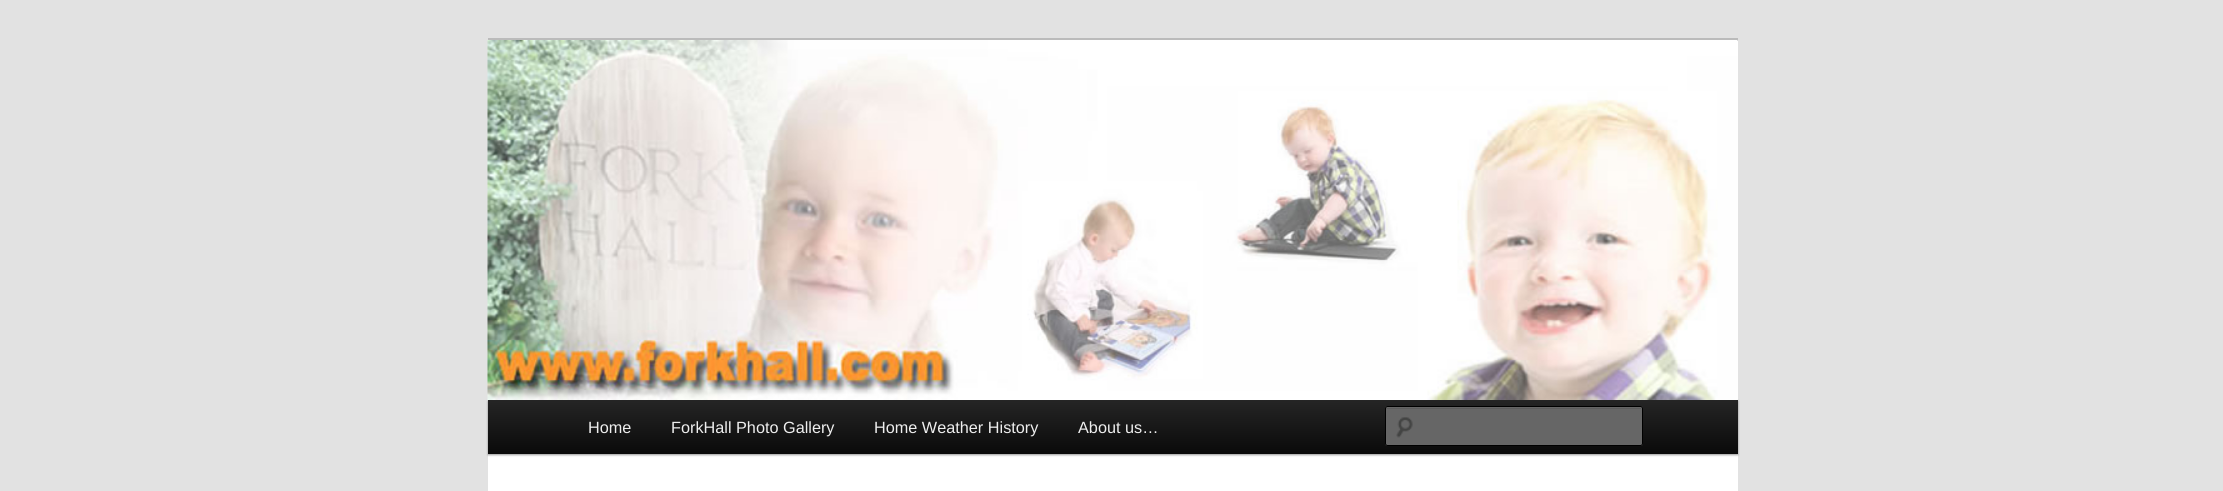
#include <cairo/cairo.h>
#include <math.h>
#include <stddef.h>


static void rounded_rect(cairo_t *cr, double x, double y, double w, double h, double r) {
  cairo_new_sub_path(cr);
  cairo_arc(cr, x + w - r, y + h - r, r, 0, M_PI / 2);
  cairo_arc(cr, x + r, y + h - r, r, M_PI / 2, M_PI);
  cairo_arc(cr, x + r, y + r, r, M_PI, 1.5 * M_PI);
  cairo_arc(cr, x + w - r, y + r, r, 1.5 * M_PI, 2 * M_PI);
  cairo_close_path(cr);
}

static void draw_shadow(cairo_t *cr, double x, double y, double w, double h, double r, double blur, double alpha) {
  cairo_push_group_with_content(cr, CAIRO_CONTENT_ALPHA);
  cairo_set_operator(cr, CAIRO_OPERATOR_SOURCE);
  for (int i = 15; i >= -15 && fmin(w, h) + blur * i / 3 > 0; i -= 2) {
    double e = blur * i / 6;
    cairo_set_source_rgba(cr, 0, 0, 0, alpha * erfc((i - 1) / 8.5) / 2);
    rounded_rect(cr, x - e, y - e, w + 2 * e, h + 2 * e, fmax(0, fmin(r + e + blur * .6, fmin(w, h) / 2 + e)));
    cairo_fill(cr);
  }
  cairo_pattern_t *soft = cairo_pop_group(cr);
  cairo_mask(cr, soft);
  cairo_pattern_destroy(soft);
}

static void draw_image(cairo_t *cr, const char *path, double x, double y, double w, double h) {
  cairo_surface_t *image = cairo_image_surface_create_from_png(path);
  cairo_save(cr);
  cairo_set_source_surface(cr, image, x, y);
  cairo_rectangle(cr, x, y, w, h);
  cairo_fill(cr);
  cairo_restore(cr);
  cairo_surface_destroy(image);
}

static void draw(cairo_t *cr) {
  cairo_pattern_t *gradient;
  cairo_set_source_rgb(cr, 226 / 255.0, 226 / 255.0, 226 / 255.0);
  cairo_paint(cr);
  cairo_set_source_rgb(cr, 1, 1, 1);
  cairo_rectangle(cr, 488, 41, 1250, 450);
  cairo_fill(cr);
  cairo_set_source_rgb(cr, 187 / 255.0, 187 / 255.0, 187 / 255.0);
  cairo_rectangle(cr, 488, 38, 1250, 3);
  cairo_fill(cr);
  cairo_set_source_rgb(cr, 0, 0, 0);
  draw_shadow(cr, 488, 401, 1250, 54, 0, 1, 0.4);
  draw_image(cr, "images/1.png", 487, 40, 1251, 360);
  gradient = cairo_pattern_create_linear(1113, 400, 1113, 454);
  cairo_pattern_add_color_stop_rgba(gradient, 0, 37 / 255.0, 37 / 255.0, 37 / 255.0, 1);
  cairo_pattern_add_color_stop_rgba(gradient, 1, 10 / 255.0, 10 / 255.0, 10 / 255.0, 1);
  cairo_set_source(cr, gradient);
  cairo_pattern_destroy(gradient);
  cairo_rectangle(cr, 488, 400, 1250, 54);
  cairo_fill(cr);
  cairo_set_source_rgb(cr, 102 / 255.0, 102 / 255.0, 102 / 255.0);
  rounded_rect(cr, 1385, 406, 258, 40, 2.5);
  cairo_fill(cr);
  draw_image(cr, "images/2.png", 1396, 417, 17, 21);
  cairo_set_source_rgb(cr, 92 / 255.0, 92 / 255.0, 92 / 255.0);
  cairo_new_path(cr);
  cairo_move_to(cr, 1388, 409);
  cairo_line_to(cr, 1640, 409);
  cairo_curve_to(cr, 1641, 409, 1641, 409, 1641, 410);
  cairo_line_to(cr, 1641, 408);
  cairo_line_to(cr, 1387, 408);
  cairo_curve_to(cr, 1386, 408, 1386, 409, 1386, 410);
  cairo_curve_to(cr, 1386, 409, 1387, 409, 1388, 409);
  cairo_close_path(cr);
  cairo_fill(cr);
  rounded_rect(cr, 1385.5, 406.5, 257, 39, 2);
  cairo_set_source_rgb(cr, 0, 0, 0);
  cairo_set_line_width(cr, 1);
  cairo_stroke(cr);
  cairo_select_font_face(cr, "Liberation Sans", CAIRO_FONT_SLANT_NORMAL, CAIRO_FONT_WEIGHT_NORMAL);
  cairo_set_font_size(cr, 16.25);
  cairo_set_source_rgb(cr, 238 / 255.0, 238 / 255.0, 238 / 255.0);
  cairo_move_to(cr, 588, 433);
  cairo_show_text(cr, "Home");
  cairo_move_to(cr, 671, 433);
  cairo_show_text(cr, "ForkHall Photo Gallery");
  cairo_move_to(cr, 874, 433);
  cairo_show_text(cr, "Home Weather History");
  cairo_move_to(cr, 1078, 433);
  cairo_show_text(cr, "About us…");
}

int main(void) {
  cairo_surface_t *surface = cairo_image_surface_create(CAIRO_FORMAT_RGB24, 2223, 491);
  cairo_t *cr = cairo_create(surface);
  cairo_font_options_t *options = cairo_font_options_create();
  cairo_font_options_set_hint_metrics(options, CAIRO_HINT_METRICS_OFF);
  cairo_font_options_set_hint_style(options, CAIRO_HINT_STYLE_NONE);
  cairo_set_font_options(cr, options);
  cairo_set_miter_limit(cr, 4);
  draw(cr);
  cairo_surface_write_to_png(surface, "out.png");
  cairo_font_options_destroy(options);
  cairo_destroy(cr);
  cairo_surface_destroy(surface);
  return 0;
}
